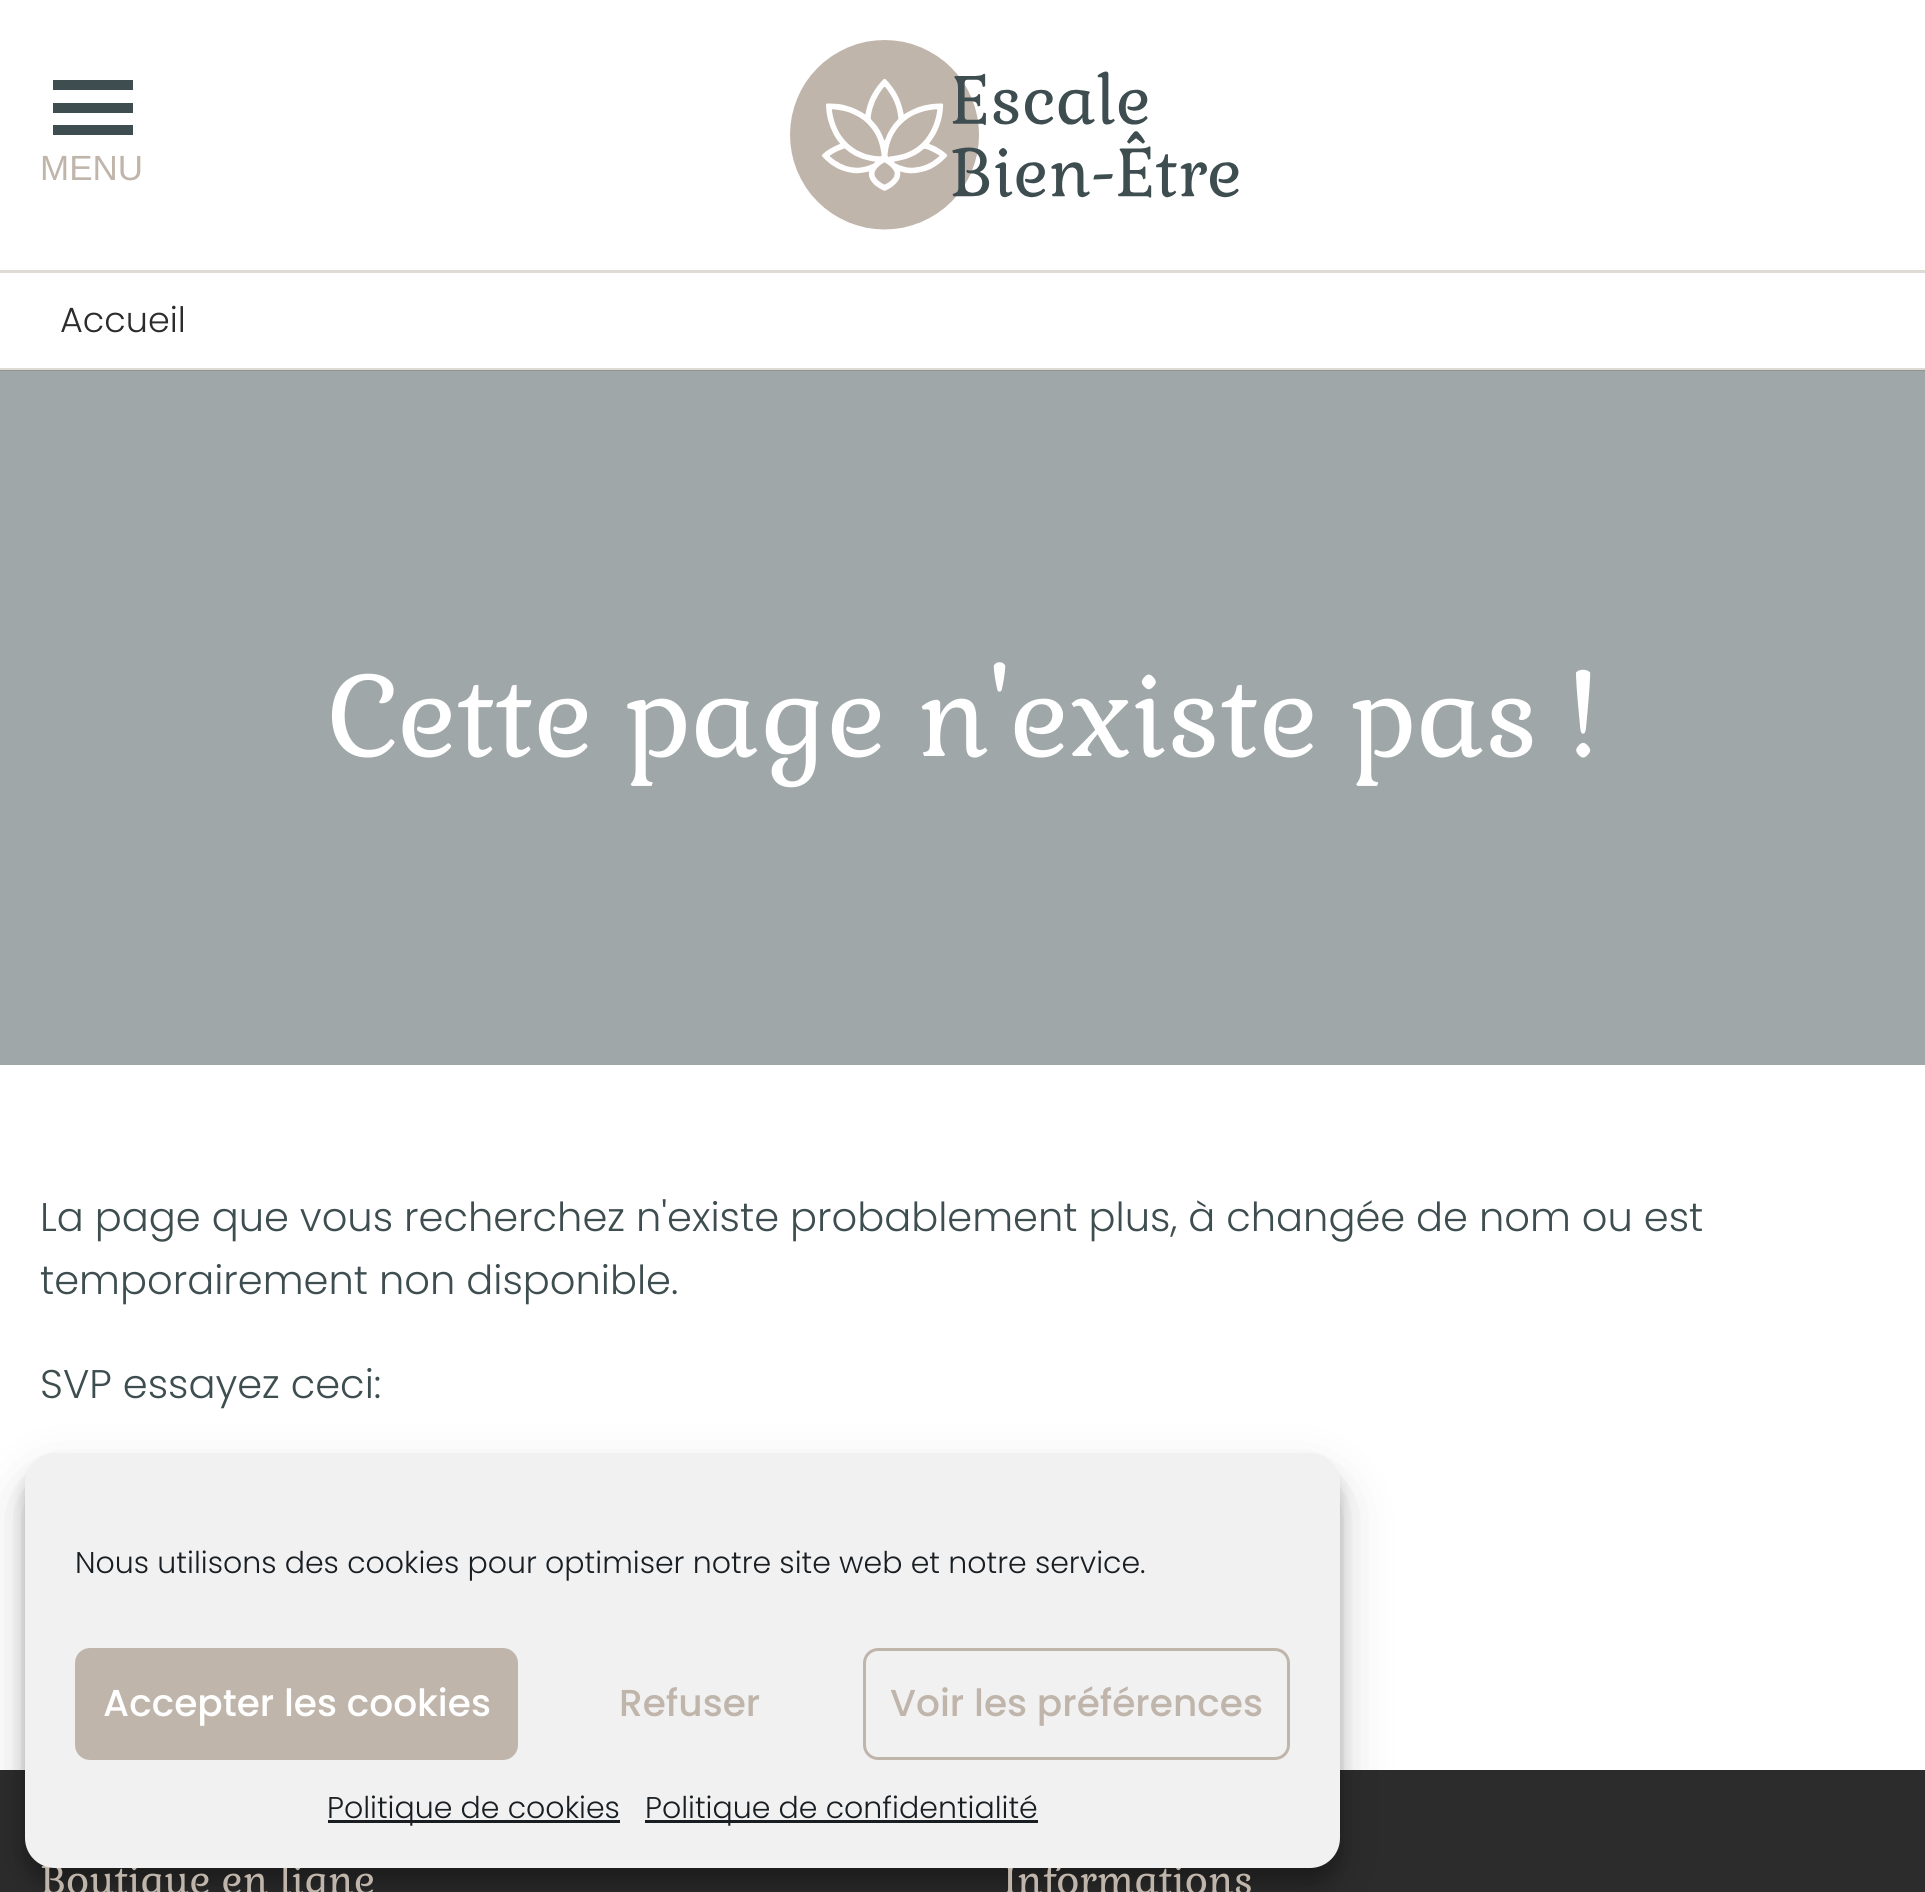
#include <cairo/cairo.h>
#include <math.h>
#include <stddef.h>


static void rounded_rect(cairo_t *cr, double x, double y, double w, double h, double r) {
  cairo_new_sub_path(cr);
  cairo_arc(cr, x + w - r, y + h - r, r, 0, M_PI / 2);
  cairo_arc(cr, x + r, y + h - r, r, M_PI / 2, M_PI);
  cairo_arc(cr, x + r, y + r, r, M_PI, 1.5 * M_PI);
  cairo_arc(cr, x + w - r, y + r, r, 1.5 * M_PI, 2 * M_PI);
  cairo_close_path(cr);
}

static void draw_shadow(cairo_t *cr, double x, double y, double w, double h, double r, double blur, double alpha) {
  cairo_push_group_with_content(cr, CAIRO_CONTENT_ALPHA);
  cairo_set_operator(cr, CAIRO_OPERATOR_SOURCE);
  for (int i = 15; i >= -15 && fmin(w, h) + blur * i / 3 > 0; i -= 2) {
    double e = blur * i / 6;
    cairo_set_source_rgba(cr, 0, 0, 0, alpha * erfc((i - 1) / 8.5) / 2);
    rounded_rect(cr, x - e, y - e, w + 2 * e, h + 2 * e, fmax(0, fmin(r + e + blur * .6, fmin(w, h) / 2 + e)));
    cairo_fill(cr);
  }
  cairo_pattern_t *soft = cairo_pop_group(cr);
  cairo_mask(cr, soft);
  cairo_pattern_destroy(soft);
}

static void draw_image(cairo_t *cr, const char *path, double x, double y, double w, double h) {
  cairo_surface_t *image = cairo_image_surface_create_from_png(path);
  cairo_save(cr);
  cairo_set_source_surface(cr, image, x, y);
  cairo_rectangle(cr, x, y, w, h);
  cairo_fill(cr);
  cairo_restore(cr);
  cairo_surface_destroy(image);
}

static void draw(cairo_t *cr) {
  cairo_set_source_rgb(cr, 1, 1, 1);
  cairo_paint(cr);
  cairo_set_source_rgb(cr, 159 / 255.0, 167 / 255.0, 168 / 255.0);
  cairo_rectangle(cr, 0, 371, 1925, 694);
  cairo_fill(cr);
  cairo_set_source_rgb(cr, 62 / 255.0, 78 / 255.0, 80 / 255.0);
  cairo_rectangle(cr, 53, 80, 80, 10);
  cairo_fill(cr);
  cairo_rectangle(cr, 53, 103, 80, 10);
  cairo_fill(cr);
  cairo_rectangle(cr, 53, 125, 80, 10);
  cairo_fill(cr);
  draw_image(cr, "images/1.png", 790, 40, 449, 190);
  cairo_set_source_rgb(cr, 224 / 255.0, 218 / 255.0, 213 / 255.0);
  cairo_rectangle(cr, 0, 270, 1925, 3);
  cairo_fill(cr);
  cairo_rectangle(cr, 0, 368, 1925, 2);
  cairo_fill(cr);
  cairo_set_source_rgb(cr, 143 / 255.0, 148 / 255.0, 147 / 255.0);
  cairo_rectangle(cr, 0, 370, 1925, 1);
  cairo_fill(cr);
  cairo_set_source_rgb(cr, 44 / 255.0, 44 / 255.0, 44 / 255.0);
  cairo_rectangle(cr, 0, 1770, 1925, 122);
  cairo_fill(cr);
  cairo_set_source_rgb(cr, 0, 0, 0);
  draw_shadow(cr, 25, 1468, 1315, 415, 30, 7.5, 0.23);
  draw_shadow(cr, 25, 1478, 1315, 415, 30, 25, 0.19);
  cairo_select_font_face(cr, "Liberation Sans", CAIRO_FONT_SLANT_NORMAL, CAIRO_FONT_WEIGHT_NORMAL);
  cairo_set_font_size(cr, 35);
  cairo_set_source_rgb(cr, 192 / 255.0, 181 / 255.0, 171 / 255.0);
  cairo_move_to(cr, 40, 180);
  cairo_show_text(cr, "MENU");
  cairo_select_font_face(cr, "Poppins Light", CAIRO_FONT_SLANT_NORMAL, CAIRO_FONT_WEIGHT_NORMAL);
  cairo_set_source_rgb(cr, 44 / 255.0, 44 / 255.0, 44 / 255.0);
  cairo_move_to(cr, 60, 332);
  cairo_show_text(cr, "Accueil");
  cairo_select_font_face(cr, "Gabriela", CAIRO_FONT_SLANT_NORMAL, CAIRO_FONT_WEIGHT_NORMAL);
  cairo_set_font_size(cr, 112.5);
  cairo_set_source_rgb(cr, 1, 1, 1);
  cairo_move_to(cr, 328, 756);
  cairo_show_text(cr, "Cette page n'existe pas !");
  cairo_select_font_face(cr, "Poppins Light", CAIRO_FONT_SLANT_NORMAL, CAIRO_FONT_WEIGHT_NORMAL);
  cairo_set_font_size(cr, 40);
  cairo_set_source_rgb(cr, 62 / 255.0, 78 / 255.0, 80 / 255.0);
  cairo_move_to(cr, 40, 1231);
  cairo_show_text(cr, "La page que vous recherchez n'existe probablement plus, à changée de nom ou est");
  cairo_move_to(cr, 40, 1294);
  cairo_show_text(cr, "temporairement non disponible.");
  cairo_move_to(cr, 40, 1398);
  cairo_show_text(cr, "SVP essayez ceci:");
  cairo_select_font_face(cr, "Gabriela", CAIRO_FONT_SLANT_NORMAL, CAIRO_FONT_WEIGHT_NORMAL);
  cairo_set_source_rgb(cr, 192 / 255.0, 181 / 255.0, 171 / 255.0);
  cairo_move_to(cr, 40, 1894);
  cairo_show_text(cr, "Boutique en ligne");
  cairo_move_to(cr, 1003, 1894);
  cairo_show_text(cr, "Informations");
  cairo_set_source_rgb(cr, 241 / 255.0, 241 / 255.0, 241 / 255.0);
  rounded_rect(cr, 25, 1453, 1315, 415, 30);
  cairo_fill(cr);
  cairo_select_font_face(cr, "Poppins Light", CAIRO_FONT_SLANT_NORMAL, CAIRO_FONT_WEIGHT_NORMAL);
  cairo_set_font_size(cr, 30);
  cairo_set_source_rgb(cr, 25 / 255.0, 30 / 255.0, 35 / 255.0);
  cairo_move_to(cr, 75, 1573);
  cairo_show_text(cr, "Nous utilisons des cookies pour optimiser notre site web et notre service.");
  cairo_rectangle(cr, 645, 1820, 393, 3);
  cairo_fill(cr);
  cairo_move_to(cr, 645, 1818);
  cairo_show_text(cr, "Politique de confidentialité");
  cairo_rectangle(cr, 328, 1820, 292, 3);
  cairo_fill(cr);
  cairo_move_to(cr, 327, 1818);
  cairo_show_text(cr, "Politique de cookies");
  rounded_rect(cr, 864.5, 1649.5, 424, 109, 13.5);
  cairo_set_source_rgb(cr, 192 / 255.0, 181 / 255.0, 171 / 255.0);
  cairo_set_line_width(cr, 3);
  cairo_stroke(cr);
  cairo_select_font_face(cr, "Poppins Medium", CAIRO_FONT_SLANT_NORMAL, CAIRO_FONT_WEIGHT_NORMAL);
  cairo_set_font_size(cr, 37.5);
  cairo_move_to(cr, 890, 1716);
  cairo_show_text(cr, "Voir les préférences");
  cairo_move_to(cr, 619, 1716);
  cairo_show_text(cr, "Refuser");
  rounded_rect(cr, 76.5, 1649.5, 440, 109, 13.5);
  cairo_fill_preserve(cr);
  cairo_stroke(cr);
  cairo_set_source_rgb(cr, 1, 1, 1);
  cairo_move_to(cr, 103, 1716);
  cairo_show_text(cr, "Accepter les cookies");
}

int main(void) {
  cairo_surface_t *surface = cairo_image_surface_create(CAIRO_FORMAT_RGB24, 1925, 1892);
  cairo_t *cr = cairo_create(surface);
  cairo_font_options_t *options = cairo_font_options_create();
  cairo_font_options_set_hint_metrics(options, CAIRO_HINT_METRICS_OFF);
  cairo_font_options_set_hint_style(options, CAIRO_HINT_STYLE_NONE);
  cairo_set_font_options(cr, options);
  cairo_set_miter_limit(cr, 4);
  draw(cr);
  cairo_surface_write_to_png(surface, "out.png");
  cairo_font_options_destroy(options);
  cairo_destroy(cr);
  cairo_surface_destroy(surface);
  return 0;
}
